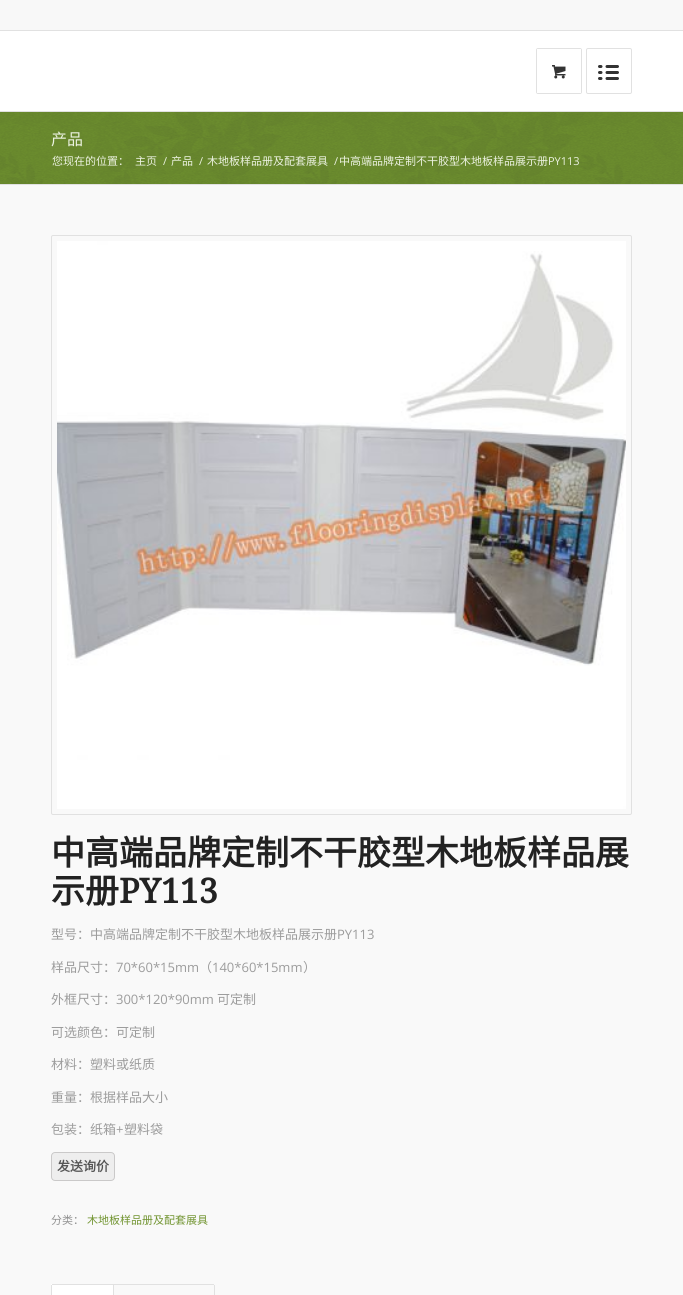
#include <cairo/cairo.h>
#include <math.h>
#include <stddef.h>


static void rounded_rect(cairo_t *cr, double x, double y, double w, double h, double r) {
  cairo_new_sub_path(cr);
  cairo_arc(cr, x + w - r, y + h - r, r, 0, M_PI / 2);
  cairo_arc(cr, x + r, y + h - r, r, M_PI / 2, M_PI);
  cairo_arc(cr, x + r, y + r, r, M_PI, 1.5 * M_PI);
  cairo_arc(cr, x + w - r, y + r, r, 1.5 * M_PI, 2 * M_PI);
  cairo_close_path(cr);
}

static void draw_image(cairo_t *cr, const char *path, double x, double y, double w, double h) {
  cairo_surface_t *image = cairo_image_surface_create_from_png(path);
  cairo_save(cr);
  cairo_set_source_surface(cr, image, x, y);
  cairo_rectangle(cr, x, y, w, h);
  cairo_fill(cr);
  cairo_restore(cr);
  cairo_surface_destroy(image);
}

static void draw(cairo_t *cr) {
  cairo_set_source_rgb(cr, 113 / 255.0, 148 / 255.0, 48 / 255.0);
  cairo_paint(cr);
  cairo_set_source_rgb(cr, 248 / 255.0, 248 / 255.0, 248 / 255.0);
  cairo_rectangle(cr, 0, 0, 683, 30);
  cairo_fill(cr);
  cairo_set_source_rgb(cr, 225 / 255.0, 225 / 255.0, 225 / 255.0);
  cairo_rectangle(cr, 0, 30, 683, 1);
  cairo_fill(cr);
  cairo_set_source_rgb(cr, 1, 1, 1);
  cairo_rectangle(cr, 0, 31, 683, 80);
  cairo_fill(cr);
  cairo_set_source_rgb(cr, 225 / 255.0, 225 / 255.0, 225 / 255.0);
  cairo_rectangle(cr, 0, 111, 683, 1);
  cairo_fill(cr);
  rounded_rect(cr, 536.5, 48.5, 45, 45, 1.5);
  cairo_set_line_width(cr, 1);
  cairo_stroke(cr);
  cairo_set_source_rgb(cr, 1, 1, 1);
  cairo_rectangle(cr, 537, 49, 44, 44);
  cairo_fill(cr);
  draw_image(cr, "images/1.png", 552, 65, 14, 14);
  rounded_rect(cr, 586.5, 48.5, 45, 45, 1.5);
  cairo_set_source_rgb(cr, 225 / 255.0, 225 / 255.0, 225 / 255.0);
  cairo_stroke(cr);
  draw_image(cr, "images/2.png", 598, 65, 21, 15);
  draw_image(cr, "images/3.png", 0, 112, 683, 72);
  cairo_set_source_rgb(cr, 249 / 255.0, 249 / 255.0, 249 / 255.0);
  cairo_rectangle(cr, 0, 185, 683, 1110);
  cairo_fill(cr);
  cairo_set_source_rgb(cr, 225 / 255.0, 225 / 255.0, 225 / 255.0);
  cairo_rectangle(cr, 0, 184, 683, 1);
  cairo_fill(cr);
  rounded_rect(cr, 51.5, 235.5, 580, 579, 1.5);
  cairo_stroke(cr);
  draw_image(cr, "images/4.png", 57, 241, 569, 568);
  cairo_set_source_rgb(cr, 238 / 255.0, 238 / 255.0, 238 / 255.0);
  rounded_rect(cr, 51.5, 1152.5, 63, 28, 3.5);
  cairo_fill_preserve(cr);
  cairo_set_source_rgb(cr, 202 / 255.0, 201 / 255.0, 201 / 255.0);
  cairo_stroke(cr);
  cairo_set_source_rgb(cr, 1, 1, 1);
  cairo_rectangle(cr, 51, 1284, 62, 11);
  cairo_fill(cr);
  cairo_set_source_rgb(cr, 225 / 255.0, 225 / 255.0, 225 / 255.0);
  cairo_rectangle(cr, 113, 1284, 101, 1);
  cairo_fill(cr);
  cairo_rectangle(cr, 52, 1284, 62, 1);
  cairo_fill(cr);
  cairo_rectangle(cr, 113, 1284, 1, 11);
  cairo_fill(cr);
  cairo_rectangle(cr, 51, 1285, 1, 10);
  cairo_fill(cr);
  cairo_rectangle(cr, 214, 1285, 1, 10);
  cairo_fill(cr);
  cairo_select_font_face(cr, "Noto Sans CJK SC", CAIRO_FONT_SLANT_NORMAL, CAIRO_FONT_WEIGHT_NORMAL);
  cairo_set_font_size(cr, 16);
  cairo_set_source_rgb(cr, 236 / 255.0, 242 / 255.0, 225 / 255.0);
  cairo_move_to(cr, 51, 145);
  cairo_show_text(cr, "产品");
  cairo_set_font_size(cr, 11);
  cairo_move_to(cr, 52, 165);
  cairo_show_text(cr, "您现在的位置：");
  cairo_move_to(cr, 135, 165);
  cairo_show_text(cr, "主页");
  cairo_select_font_face(cr, "Open Sans", CAIRO_FONT_SLANT_NORMAL, CAIRO_FONT_WEIGHT_NORMAL);
  cairo_move_to(cr, 163, 165);
  cairo_show_text(cr, "/");
  cairo_select_font_face(cr, "Noto Sans CJK SC", CAIRO_FONT_SLANT_NORMAL, CAIRO_FONT_WEIGHT_NORMAL);
  cairo_move_to(cr, 171, 165);
  cairo_show_text(cr, "产品");
  cairo_select_font_face(cr, "Open Sans", CAIRO_FONT_SLANT_NORMAL, CAIRO_FONT_WEIGHT_NORMAL);
  cairo_move_to(cr, 199, 165);
  cairo_show_text(cr, "/");
  cairo_select_font_face(cr, "Noto Sans CJK SC", CAIRO_FONT_SLANT_NORMAL, CAIRO_FONT_WEIGHT_NORMAL);
  cairo_move_to(cr, 207, 165);
  cairo_show_text(cr, "木地板样品册及配套展具");
  cairo_select_font_face(cr, "Open Sans", CAIRO_FONT_SLANT_NORMAL, CAIRO_FONT_WEIGHT_NORMAL);
  cairo_move_to(cr, 334, 165);
  cairo_show_text(cr, "/");
  cairo_select_font_face(cr, "Noto Sans CJK SC", CAIRO_FONT_SLANT_NORMAL, CAIRO_FONT_WEIGHT_NORMAL);
  cairo_move_to(cr, 339, 165);
  cairo_show_text(cr, "中高端品牌定制不干胶型木地板样品展示册");
  cairo_select_font_face(cr, "Open Sans", CAIRO_FONT_SLANT_NORMAL, CAIRO_FONT_WEIGHT_NORMAL);
  cairo_move_to(cr, 548, 165);
  cairo_show_text(cr, "PY113");
  cairo_select_font_face(cr, "Noto Sans CJK SC", CAIRO_FONT_SLANT_NORMAL, CAIRO_FONT_WEIGHT_BOLD);
  cairo_set_font_size(cr, 34);
  cairo_set_source_rgb(cr, 34 / 255.0, 34 / 255.0, 34 / 255.0);
  cairo_move_to(cr, 51, 865);
  cairo_show_text(cr, "中高端品牌定制不干胶型木地板样品展");
  cairo_move_to(cr, 51, 903);
  cairo_show_text(cr, "示册");
  cairo_select_font_face(cr, "Droid Serif", CAIRO_FONT_SLANT_NORMAL, CAIRO_FONT_WEIGHT_BOLD);
  cairo_move_to(cr, 119, 903);
  cairo_show_text(cr, "PY113");
  cairo_select_font_face(cr, "Noto Sans CJK SC", CAIRO_FONT_SLANT_NORMAL, CAIRO_FONT_WEIGHT_NORMAL);
  cairo_set_font_size(cr, 13);
  cairo_set_source_rgb(cr, 156 / 255.0, 156 / 255.0, 156 / 255.0);
  cairo_move_to(cr, 51, 939);
  cairo_show_text(cr, "型号：中高端品牌定制不干胶型木地板样品展示册");
  cairo_select_font_face(cr, "Open Sans", CAIRO_FONT_SLANT_NORMAL, CAIRO_FONT_WEIGHT_NORMAL);
  cairo_move_to(cr, 337, 939);
  cairo_show_text(cr, "PY113");
  cairo_select_font_face(cr, "Noto Sans CJK SC", CAIRO_FONT_SLANT_NORMAL, CAIRO_FONT_WEIGHT_NORMAL);
  cairo_move_to(cr, 51, 972);
  cairo_show_text(cr, "样品尺寸：");
  cairo_select_font_face(cr, "Open Sans", CAIRO_FONT_SLANT_NORMAL, CAIRO_FONT_WEIGHT_NORMAL);
  cairo_move_to(cr, 116, 972);
  cairo_show_text(cr, "70*60*15mm");
  cairo_select_font_face(cr, "Noto Sans CJK SC", CAIRO_FONT_SLANT_NORMAL, CAIRO_FONT_WEIGHT_NORMAL);
  cairo_move_to(cr, 199, 972);
  cairo_show_text(cr, "（");
  cairo_select_font_face(cr, "Open Sans", CAIRO_FONT_SLANT_NORMAL, CAIRO_FONT_WEIGHT_NORMAL);
  cairo_move_to(cr, 212, 972);
  cairo_show_text(cr, "140*60*15mm");
  cairo_select_font_face(cr, "Noto Sans CJK SC", CAIRO_FONT_SLANT_NORMAL, CAIRO_FONT_WEIGHT_NORMAL);
  cairo_move_to(cr, 303, 972);
  cairo_show_text(cr, "）");
  cairo_move_to(cr, 51, 1004);
  cairo_show_text(cr, "外框尺寸：");
  cairo_select_font_face(cr, "Open Sans", CAIRO_FONT_SLANT_NORMAL, CAIRO_FONT_WEIGHT_NORMAL);
  cairo_move_to(cr, 116, 1004);
  cairo_show_text(cr, "300*120*90mm");
  cairo_select_font_face(cr, "Noto Sans CJK SC", CAIRO_FONT_SLANT_NORMAL, CAIRO_FONT_WEIGHT_NORMAL);
  cairo_move_to(cr, 217, 1004);
  cairo_show_text(cr, "可定制");
  cairo_move_to(cr, 51, 1037);
  cairo_show_text(cr, "可选颜色：可定制");
  cairo_move_to(cr, 51, 1069);
  cairo_show_text(cr, "材料：塑料或纸质");
  cairo_move_to(cr, 51, 1102);
  cairo_show_text(cr, "重量：根据样品大小");
  cairo_move_to(cr, 51, 1134);
  cairo_show_text(cr, "包装：纸箱");
  cairo_select_font_face(cr, "Open Sans", CAIRO_FONT_SLANT_NORMAL, CAIRO_FONT_WEIGHT_NORMAL);
  cairo_move_to(cr, 116, 1134);
  cairo_show_text(cr, "+");
  cairo_select_font_face(cr, "Noto Sans CJK SC", CAIRO_FONT_SLANT_NORMAL, CAIRO_FONT_WEIGHT_NORMAL);
  cairo_move_to(cr, 124, 1134);
  cairo_show_text(cr, "塑料袋");
  cairo_select_font_face(cr, "Noto Sans CJK SC", CAIRO_FONT_SLANT_NORMAL, CAIRO_FONT_WEIGHT_BOLD);
  cairo_set_source_rgb(cr, 85 / 255.0, 85 / 255.0, 85 / 255.0);
  cairo_move_to(cr, 57, 1171);
  cairo_show_text(cr, "发送询价");
  cairo_select_font_face(cr, "Noto Sans CJK SC", CAIRO_FONT_SLANT_NORMAL, CAIRO_FONT_WEIGHT_NORMAL);
  cairo_set_font_size(cr, 11);
  cairo_set_source_rgb(cr, 145 / 255.0, 145 / 255.0, 145 / 255.0);
  cairo_move_to(cr, 51, 1224);
  cairo_show_text(cr, "分类：");
  cairo_set_source_rgb(cr, 113 / 255.0, 148 / 255.0, 48 / 255.0);
  cairo_move_to(cr, 87, 1224);
  cairo_show_text(cr, "木地板样品册及配套展具");
}

int main(void) {
  cairo_surface_t *surface = cairo_image_surface_create(CAIRO_FORMAT_RGB24, 683, 1295);
  cairo_t *cr = cairo_create(surface);
  cairo_font_options_t *options = cairo_font_options_create();
  cairo_font_options_set_hint_metrics(options, CAIRO_HINT_METRICS_OFF);
  cairo_font_options_set_hint_style(options, CAIRO_HINT_STYLE_NONE);
  cairo_set_font_options(cr, options);
  cairo_set_miter_limit(cr, 4);
  draw(cr);
  cairo_surface_write_to_png(surface, "out.png");
  cairo_font_options_destroy(options);
  cairo_destroy(cr);
  cairo_surface_destroy(surface);
  return 0;
}
